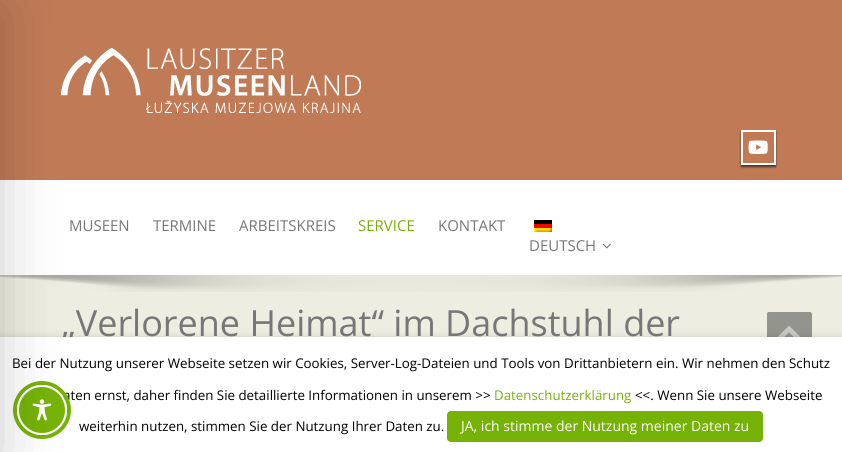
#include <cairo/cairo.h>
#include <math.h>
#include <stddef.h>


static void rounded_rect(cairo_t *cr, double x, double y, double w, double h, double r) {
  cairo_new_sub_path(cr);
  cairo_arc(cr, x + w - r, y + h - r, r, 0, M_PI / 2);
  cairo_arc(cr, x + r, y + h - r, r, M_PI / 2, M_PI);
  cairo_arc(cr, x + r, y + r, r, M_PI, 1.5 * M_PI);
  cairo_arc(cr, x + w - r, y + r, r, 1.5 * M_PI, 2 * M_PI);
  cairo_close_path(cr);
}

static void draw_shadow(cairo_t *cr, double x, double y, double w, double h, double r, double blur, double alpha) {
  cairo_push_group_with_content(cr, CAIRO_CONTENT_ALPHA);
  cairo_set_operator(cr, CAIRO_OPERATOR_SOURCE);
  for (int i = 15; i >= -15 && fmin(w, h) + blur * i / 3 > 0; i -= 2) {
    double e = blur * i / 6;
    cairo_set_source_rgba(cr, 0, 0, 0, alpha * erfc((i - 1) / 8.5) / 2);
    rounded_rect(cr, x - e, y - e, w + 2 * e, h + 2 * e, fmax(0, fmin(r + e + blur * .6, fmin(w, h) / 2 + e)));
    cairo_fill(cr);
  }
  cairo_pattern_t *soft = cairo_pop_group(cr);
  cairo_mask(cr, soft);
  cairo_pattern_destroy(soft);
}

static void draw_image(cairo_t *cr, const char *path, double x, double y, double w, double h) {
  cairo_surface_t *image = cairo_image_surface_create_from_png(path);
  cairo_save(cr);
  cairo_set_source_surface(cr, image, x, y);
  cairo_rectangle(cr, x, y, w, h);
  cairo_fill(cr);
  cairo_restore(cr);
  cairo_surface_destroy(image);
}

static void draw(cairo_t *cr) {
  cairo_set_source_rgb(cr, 237 / 255.0, 237 / 255.0, 225 / 255.0);
  cairo_paint(cr);
  cairo_set_source_rgb(cr, 192 / 255.0, 123 / 255.0, 86 / 255.0);
  cairo_rectangle(cr, 0, 0, 842, 180);
  cairo_fill(cr);
  draw_image(cr, "images/1.png", 61, 48, 300, 65);
  cairo_save(cr);
  cairo_set_fill_rule(cr, CAIRO_FILL_RULE_EVEN_ODD);
  cairo_new_path(cr);
  cairo_move_to(cr, 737, 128);
  cairo_line_to(cr, 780, 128);
  cairo_line_to(cr, 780, 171);
  cairo_line_to(cr, 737, 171);
  cairo_close_path(cr);
  cairo_move_to(cr, 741, 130);
  cairo_line_to(cr, 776, 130);
  cairo_line_to(cr, 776, 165);
  cairo_line_to(cr, 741, 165);
  cairo_close_path(cr);
  cairo_clip(cr);
  cairo_set_source_rgb(cr, 0, 0, 0);
  draw_shadow(cr, 741, 132, 35, 35, 0, 1, 0.6);
  cairo_restore(cr);
  cairo_rectangle(cr, 742, 131, 33, 33);
  cairo_set_source_rgb(cr, 1, 1, 1);
  cairo_stroke(cr);
  draw_image(cr, "images/2.png", 748, 140, 20, 14);
  cairo_rectangle(cr, 0, 180, 842, 95);
  cairo_fill(cr);
  draw_image(cr, "images/3.png", 534, 220, 18, 12);
  draw_image(cr, "images/4.png", 602, 243, 9, 6);
  draw_image(cr, "images/5.png", 0, 275, 842, 17);
  cairo_set_source_rgb(cr, 148 / 255.0, 148 / 255.0, 142 / 255.0);
  rounded_rect(cr, 767, 312, 45, 40, 2);
  cairo_fill(cr);
  draw_image(cr, "images/6.png", 778, 326, 22, 11);
  cairo_set_source_rgb(cr, 0, 0, 0);
  draw_shadow(cr, 0, 342, 842, 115, 0, 5, 0.5);
  cairo_select_font_face(cr, "Open Sans", CAIRO_FONT_SLANT_NORMAL, CAIRO_FONT_WEIGHT_NORMAL);
  cairo_set_font_size(cr, 15);
  cairo_set_source_rgb(cr, 119 / 255.0, 119 / 255.0, 119 / 255.0);
  cairo_move_to(cr, 69, 231);
  cairo_show_text(cr, "MUSEEN");
  cairo_move_to(cr, 153, 231);
  cairo_show_text(cr, "TERMINE");
  cairo_move_to(cr, 239, 231);
  cairo_show_text(cr, "ARBEITSKREIS");
  cairo_set_source_rgb(cr, 118 / 255.0, 178 / 255.0, 6 / 255.0);
  cairo_move_to(cr, 358, 231);
  cairo_show_text(cr, "SERVICE");
  cairo_set_source_rgb(cr, 119 / 255.0, 119 / 255.0, 119 / 255.0);
  cairo_move_to(cr, 438, 231);
  cairo_show_text(cr, "KONTAKT");
  cairo_move_to(cr, 529, 251);
  cairo_show_text(cr, "DEUTSCH");
  cairo_set_font_size(cr, 36);
  cairo_move_to(cr, 61, 336);
  cairo_show_text(cr, "„Verlorene Heimat“ im Dachstuhl der");
  cairo_set_source_rgb(cr, 1, 1, 1);
  cairo_rectangle(cr, 0, 337, 842, 115);
  cairo_fill(cr);
  cairo_set_font_size(cr, 13.33);
  cairo_set_source_rgb(cr, 0, 0, 0);
  cairo_move_to(cr, 12, 368);
  cairo_show_text(cr, "Bei der Nutzung unserer Webseite setzen wir Cookies, Server-Log-Dateien und Tools von Drittanbietern ein. Wir nehmen den Schutz");
  cairo_move_to(cr, 63, 400);
  cairo_show_text(cr, "aten ernst, daher finden Sie detaillierte Informationen in unserem >>");
  cairo_set_source_rgb(cr, 118 / 255.0, 178 / 255.0, 6 / 255.0);
  cairo_move_to(cr, 494, 400);
  cairo_show_text(cr, "Datenschutzerklärung");
  cairo_set_source_rgb(cr, 0, 0, 0);
  cairo_move_to(cr, 635, 400);
  cairo_show_text(cr, "<<. Wenn Sie unsere Webseite");
  cairo_move_to(cr, 79, 431);
  cairo_show_text(cr, "weiterhin nutzen, stimmen Sie der Nutzung Ihrer Daten zu.");
  cairo_set_source_rgb(cr, 118 / 255.0, 178 / 255.0, 6 / 255.0);
  rounded_rect(cr, 447, 411, 316, 31, 4);
  cairo_fill(cr);
  cairo_set_font_size(cr, 14);
  cairo_set_source_rgb(cr, 1, 1, 1);
  cairo_move_to(cr, 461, 431);
  cairo_show_text(cr, "JA, ich stimme der Nutzung meiner Daten zu");
  cairo_new_path(cr);
  cairo_arc(cr, 42, 410, 27, 0, 2 * M_PI);
  cairo_set_source_rgb(cr, 118 / 255.0, 178 / 255.0, 6 / 255.0);
  cairo_set_line_width(cr, 4);
  cairo_stroke(cr);
  cairo_arc(cr, 42, 410, 24, 0, 2 * M_PI);
  cairo_fill_preserve(cr);
  cairo_set_source_rgb(cr, 1, 1, 1);
  cairo_set_line_width(cr, 2);
  cairo_stroke(cr);
  draw_image(cr, "images/7.png", 32, 399, 20, 22);
  cairo_set_source_rgb(cr, 0, 0, 0);
  draw_shadow(cr, -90, 10, 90, 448, 0, 30, 0.2);
}

int main(void) {
  cairo_surface_t *surface = cairo_image_surface_create(CAIRO_FORMAT_RGB24, 842, 452);
  cairo_t *cr = cairo_create(surface);
  cairo_font_options_t *options = cairo_font_options_create();
  cairo_font_options_set_hint_metrics(options, CAIRO_HINT_METRICS_OFF);
  cairo_font_options_set_hint_style(options, CAIRO_HINT_STYLE_NONE);
  cairo_set_font_options(cr, options);
  cairo_set_miter_limit(cr, 4);
  draw(cr);
  cairo_surface_write_to_png(surface, "out.png");
  cairo_font_options_destroy(options);
  cairo_destroy(cr);
  cairo_surface_destroy(surface);
  return 0;
}
